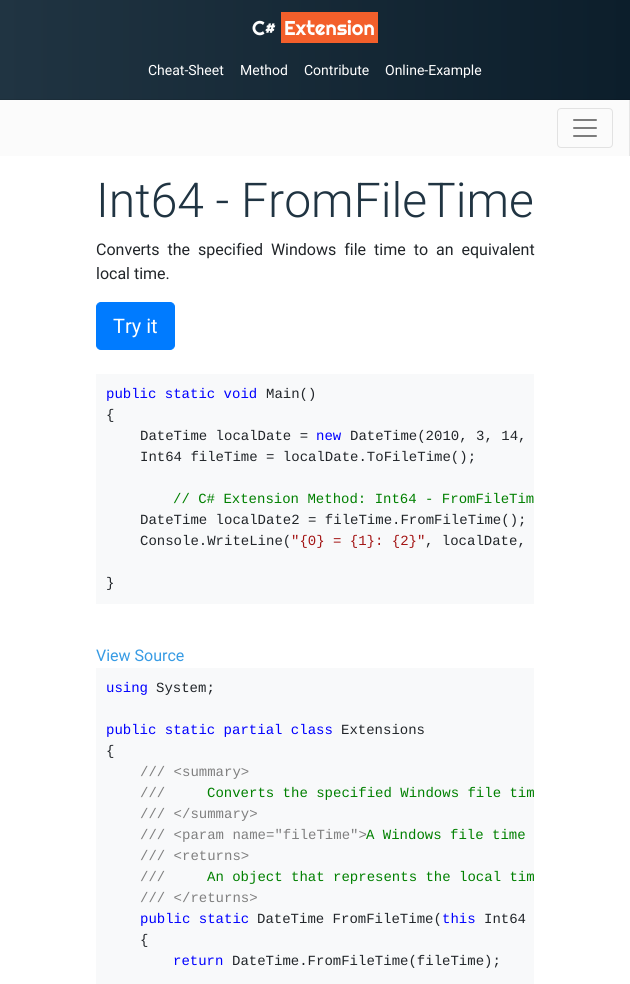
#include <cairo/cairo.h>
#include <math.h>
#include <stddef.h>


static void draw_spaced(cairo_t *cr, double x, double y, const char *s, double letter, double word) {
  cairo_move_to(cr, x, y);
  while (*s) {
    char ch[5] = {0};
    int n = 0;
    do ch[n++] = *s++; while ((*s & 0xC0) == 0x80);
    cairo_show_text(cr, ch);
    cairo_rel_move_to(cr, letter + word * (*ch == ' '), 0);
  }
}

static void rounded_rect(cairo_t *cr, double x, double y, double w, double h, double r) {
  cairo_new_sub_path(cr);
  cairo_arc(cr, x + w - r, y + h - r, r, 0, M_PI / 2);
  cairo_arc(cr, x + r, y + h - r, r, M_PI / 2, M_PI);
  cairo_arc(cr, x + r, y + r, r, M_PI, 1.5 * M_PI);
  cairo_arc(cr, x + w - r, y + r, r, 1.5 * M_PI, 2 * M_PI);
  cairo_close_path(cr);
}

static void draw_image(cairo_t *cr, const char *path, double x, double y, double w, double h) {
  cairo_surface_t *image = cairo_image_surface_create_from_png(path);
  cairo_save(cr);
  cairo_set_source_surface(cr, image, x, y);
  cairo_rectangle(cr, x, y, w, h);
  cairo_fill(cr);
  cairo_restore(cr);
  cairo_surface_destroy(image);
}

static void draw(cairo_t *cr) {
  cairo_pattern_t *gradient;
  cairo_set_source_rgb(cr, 1, 1, 1);
  cairo_paint(cr);
  gradient = cairo_pattern_create_linear(0, 50, 630, 50);
  cairo_pattern_add_color_stop_rgba(gradient, 0, 32 / 255.0, 52 / 255.0, 66 / 255.0, 1);
  cairo_pattern_add_color_stop_rgba(gradient, 1, 12 / 255.0, 30 / 255.0, 43 / 255.0, 1);
  cairo_set_source(cr, gradient);
  cairo_pattern_destroy(gradient);
  cairo_rectangle(cr, 0, 0, 630, 99);
  cairo_fill(cr);
  gradient = cairo_pattern_create_linear(0, 50, 630, 50);
  cairo_pattern_add_color_stop_rgba(gradient, 0, 29 / 255.0, 47 / 255.0, 59 / 255.0, 1);
  cairo_pattern_add_color_stop_rgba(gradient, 1, 11 / 255.0, 27 / 255.0, 39 / 255.0, 1);
  cairo_set_source(cr, gradient);
  cairo_pattern_destroy(gradient);
  cairo_rectangle(cr, 0, 99, 630, 1);
  cairo_fill(cr);
  cairo_set_source_rgb(cr, 243 / 255.0, 95 / 255.0, 43 / 255.0);
  cairo_rectangle(cr, 281, 12, 97, 31);
  cairo_fill(cr);
  cairo_set_source_rgb(cr, 251 / 255.0, 251 / 255.0, 251 / 255.0);
  cairo_rectangle(cr, 0, 100, 629, 56);
  cairo_fill(cr);
  cairo_set_source_rgb(cr, 230 / 255.0, 230 / 255.0, 230 / 255.0);
  cairo_rectangle(cr, 629, 100, 1, 56);
  cairo_fill(cr);
  rounded_rect(cr, 557.5, 108.5, 55, 39, 3.5);
  cairo_set_source_rgb(cr, 226 / 255.0, 226 / 255.0, 226 / 255.0);
  cairo_set_line_width(cr, 1);
  cairo_stroke(cr);
  draw_image(cr, "images/1.png", 573, 119, 24, 18);
  cairo_set_source_rgb(cr, 0, 123 / 255.0, 1);
  rounded_rect(cr, 96.5, 302.5, 78, 47, 4.5);
  cairo_fill_preserve(cr);
  cairo_stroke(cr);
  cairo_set_source_rgb(cr, 248 / 255.0, 249 / 255.0, 250 / 255.0);
  cairo_rectangle(cr, 96, 374, 438, 230);
  cairo_fill(cr);
  cairo_rectangle(cr, 96, 668, 438, 316);
  cairo_fill(cr);
  cairo_select_font_face(cr, "Righteous", CAIRO_FONT_SLANT_NORMAL, CAIRO_FONT_WEIGHT_NORMAL);
  cairo_set_font_size(cr, 20);
  cairo_set_source_rgb(cr, 1, 1, 1);
  cairo_move_to(cr, 252, 35);
  cairo_show_text(cr, "C#");
  cairo_move_to(cr, 284, 35);
  cairo_show_text(cr, "Extension");
  cairo_select_font_face(cr, "Roboto", CAIRO_FONT_SLANT_NORMAL, CAIRO_FONT_WEIGHT_NORMAL);
  cairo_set_font_size(cr, 14);
  cairo_move_to(cr, 148, 75);
  cairo_show_text(cr, "Cheat-Sheet");
  cairo_move_to(cr, 240, 75);
  cairo_show_text(cr, "Method");
  cairo_move_to(cr, 304, 75);
  cairo_show_text(cr, "Contribute");
  cairo_move_to(cr, 385, 75);
  cairo_show_text(cr, "Online-Example");
  cairo_select_font_face(cr, "Roboto Light", CAIRO_FONT_SLANT_NORMAL, CAIRO_FONT_WEIGHT_NORMAL);
  cairo_set_font_size(cr, 48);
  cairo_set_source_rgb(cr, 32 / 255.0, 52 / 255.0, 66 / 255.0);
  cairo_move_to(cr, 96, 217);
  cairo_show_text(cr, "Int64 - FromFileTime");
  cairo_select_font_face(cr, "Roboto", CAIRO_FONT_SLANT_NORMAL, CAIRO_FONT_WEIGHT_NORMAL);
  cairo_set_font_size(cr, 16);
  cairo_set_source_rgb(cr, 33 / 255.0, 37 / 255.0, 41 / 255.0);
  draw_spaced(cr, 96, 255, "Converts the specified Windows file time to an equivalent", 0, 4);
  cairo_move_to(cr, 96, 279);
  cairo_show_text(cr, "local time.");
  cairo_set_font_size(cr, 20);
  cairo_set_source_rgb(cr, 1, 1, 1);
  cairo_move_to(cr, 113, 333);
  cairo_show_text(cr, "Try it");
  cairo_select_font_face(cr, "Liberation Mono", CAIRO_FONT_SLANT_NORMAL, CAIRO_FONT_WEIGHT_NORMAL);
  cairo_set_font_size(cr, 14);
  cairo_set_source_rgb(cr, 0, 0, 1);
  cairo_move_to(cr, 106, 398);
  cairo_show_text(cr, "public static void");
  cairo_set_source_rgb(cr, 33 / 255.0, 37 / 255.0, 41 / 255.0);
  cairo_move_to(cr, 266, 398);
  cairo_show_text(cr, "Main()");
  cairo_move_to(cr, 106, 419);
  cairo_show_text(cr, "{");
  cairo_move_to(cr, 140, 440);
  cairo_show_text(cr, "DateTime localDate =");
  cairo_set_source_rgb(cr, 0, 0, 1);
  cairo_move_to(cr, 316, 440);
  cairo_show_text(cr, "new");
  cairo_set_source_rgb(cr, 33 / 255.0, 37 / 255.0, 41 / 255.0);
  cairo_move_to(cr, 350, 440);
  cairo_show_text(cr, "DateTime(2010, 3, 14,");
  cairo_move_to(cr, 140, 461);
  cairo_show_text(cr, "Int64 fileTime = localDate.ToFileTime();");
  cairo_set_source_rgb(cr, 0, 128 / 255.0, 0);
  cairo_move_to(cr, 173, 503);
  cairo_show_text(cr, "// C# Extension Method: Int64 - FromFileTim");
  cairo_set_source_rgb(cr, 33 / 255.0, 37 / 255.0, 41 / 255.0);
  cairo_move_to(cr, 140, 524);
  cairo_show_text(cr, "DateTime localDate2 = fileTime.FromFileTime();");
  cairo_move_to(cr, 140, 545);
  cairo_show_text(cr, "Console.WriteLine(");
  cairo_set_source_rgb(cr, 163 / 255.0, 21 / 255.0, 21 / 255.0);
  cairo_move_to(cr, 291, 545);
  cairo_show_text(cr, "\"{0} = {1}: {2}\"");
  cairo_set_source_rgb(cr, 33 / 255.0, 37 / 255.0, 41 / 255.0);
  cairo_move_to(cr, 425, 545);
  cairo_show_text(cr, ", localDate,");
  cairo_move_to(cr, 106, 587);
  cairo_show_text(cr, "}");
  cairo_select_font_face(cr, "Roboto", CAIRO_FONT_SLANT_NORMAL, CAIRO_FONT_WEIGHT_NORMAL);
  cairo_set_font_size(cr, 16);
  cairo_set_source_rgb(cr, 55 / 255.0, 155 / 255.0, 228 / 255.0);
  cairo_move_to(cr, 96, 661);
  cairo_show_text(cr, "View Source");
  cairo_select_font_face(cr, "Liberation Mono", CAIRO_FONT_SLANT_NORMAL, CAIRO_FONT_WEIGHT_NORMAL);
  cairo_set_font_size(cr, 14);
  cairo_set_source_rgb(cr, 0, 0, 1);
  cairo_move_to(cr, 106, 692);
  cairo_show_text(cr, "using");
  cairo_set_source_rgb(cr, 33 / 255.0, 37 / 255.0, 41 / 255.0);
  cairo_move_to(cr, 156, 692);
  cairo_show_text(cr, "System;");
  cairo_set_source_rgb(cr, 0, 0, 1);
  cairo_move_to(cr, 106, 734);
  cairo_show_text(cr, "public static partial class");
  cairo_set_source_rgb(cr, 33 / 255.0, 37 / 255.0, 41 / 255.0);
  cairo_move_to(cr, 341, 734);
  cairo_show_text(cr, "Extensions");
  cairo_move_to(cr, 106, 755);
  cairo_show_text(cr, "{");
  cairo_set_source_rgb(cr, 128 / 255.0, 128 / 255.0, 128 / 255.0);
  cairo_move_to(cr, 140, 776);
  cairo_show_text(cr, "/// <summary>");
  cairo_move_to(cr, 140, 797);
  cairo_show_text(cr, "///");
  cairo_set_source_rgb(cr, 0, 128 / 255.0, 0);
  cairo_move_to(cr, 207, 797);
  cairo_show_text(cr, "Converts the specified Windows file tim");
  cairo_set_source_rgb(cr, 128 / 255.0, 128 / 255.0, 128 / 255.0);
  cairo_move_to(cr, 140, 818);
  cairo_show_text(cr, "/// </summary>");
  cairo_move_to(cr, 140, 839);
  cairo_show_text(cr, "/// <param name=\"fileTime\">");
  cairo_set_source_rgb(cr, 0, 128 / 255.0, 0);
  cairo_move_to(cr, 366, 839);
  cairo_show_text(cr, "A Windows file time");
  cairo_set_source_rgb(cr, 128 / 255.0, 128 / 255.0, 128 / 255.0);
  cairo_move_to(cr, 140, 860);
  cairo_show_text(cr, "/// <returns>");
  cairo_move_to(cr, 140, 881);
  cairo_show_text(cr, "///");
  cairo_set_source_rgb(cr, 0, 128 / 255.0, 0);
  cairo_move_to(cr, 207, 881);
  cairo_show_text(cr, "An object that represents the local tim");
  cairo_set_source_rgb(cr, 128 / 255.0, 128 / 255.0, 128 / 255.0);
  cairo_move_to(cr, 140, 902);
  cairo_show_text(cr, "/// </returns>");
  cairo_set_source_rgb(cr, 0, 0, 1);
  cairo_move_to(cr, 140, 923);
  cairo_show_text(cr, "public static");
  cairo_set_source_rgb(cr, 33 / 255.0, 37 / 255.0, 41 / 255.0);
  cairo_move_to(cr, 257, 923);
  cairo_show_text(cr, "DateTime FromFileTime(");
  cairo_set_source_rgb(cr, 0, 0, 1);
  cairo_move_to(cr, 442, 923);
  cairo_show_text(cr, "this");
  cairo_set_source_rgb(cr, 33 / 255.0, 37 / 255.0, 41 / 255.0);
  cairo_move_to(cr, 484, 923);
  cairo_show_text(cr, "Int64");
  cairo_move_to(cr, 140, 944);
  cairo_show_text(cr, "{");
  cairo_set_source_rgb(cr, 0, 0, 1);
  cairo_move_to(cr, 173, 965);
  cairo_show_text(cr, "return");
  cairo_set_source_rgb(cr, 33 / 255.0, 37 / 255.0, 41 / 255.0);
  cairo_move_to(cr, 232, 965);
  cairo_show_text(cr, "DateTime.FromFileTime(fileTime);");
}

int main(void) {
  cairo_surface_t *surface = cairo_image_surface_create(CAIRO_FORMAT_RGB24, 630, 984);
  cairo_t *cr = cairo_create(surface);
  cairo_font_options_t *options = cairo_font_options_create();
  cairo_font_options_set_hint_metrics(options, CAIRO_HINT_METRICS_OFF);
  cairo_font_options_set_hint_style(options, CAIRO_HINT_STYLE_NONE);
  cairo_set_font_options(cr, options);
  cairo_set_miter_limit(cr, 4);
  draw(cr);
  cairo_surface_write_to_png(surface, "out.png");
  cairo_font_options_destroy(options);
  cairo_destroy(cr);
  cairo_surface_destroy(surface);
  return 0;
}
